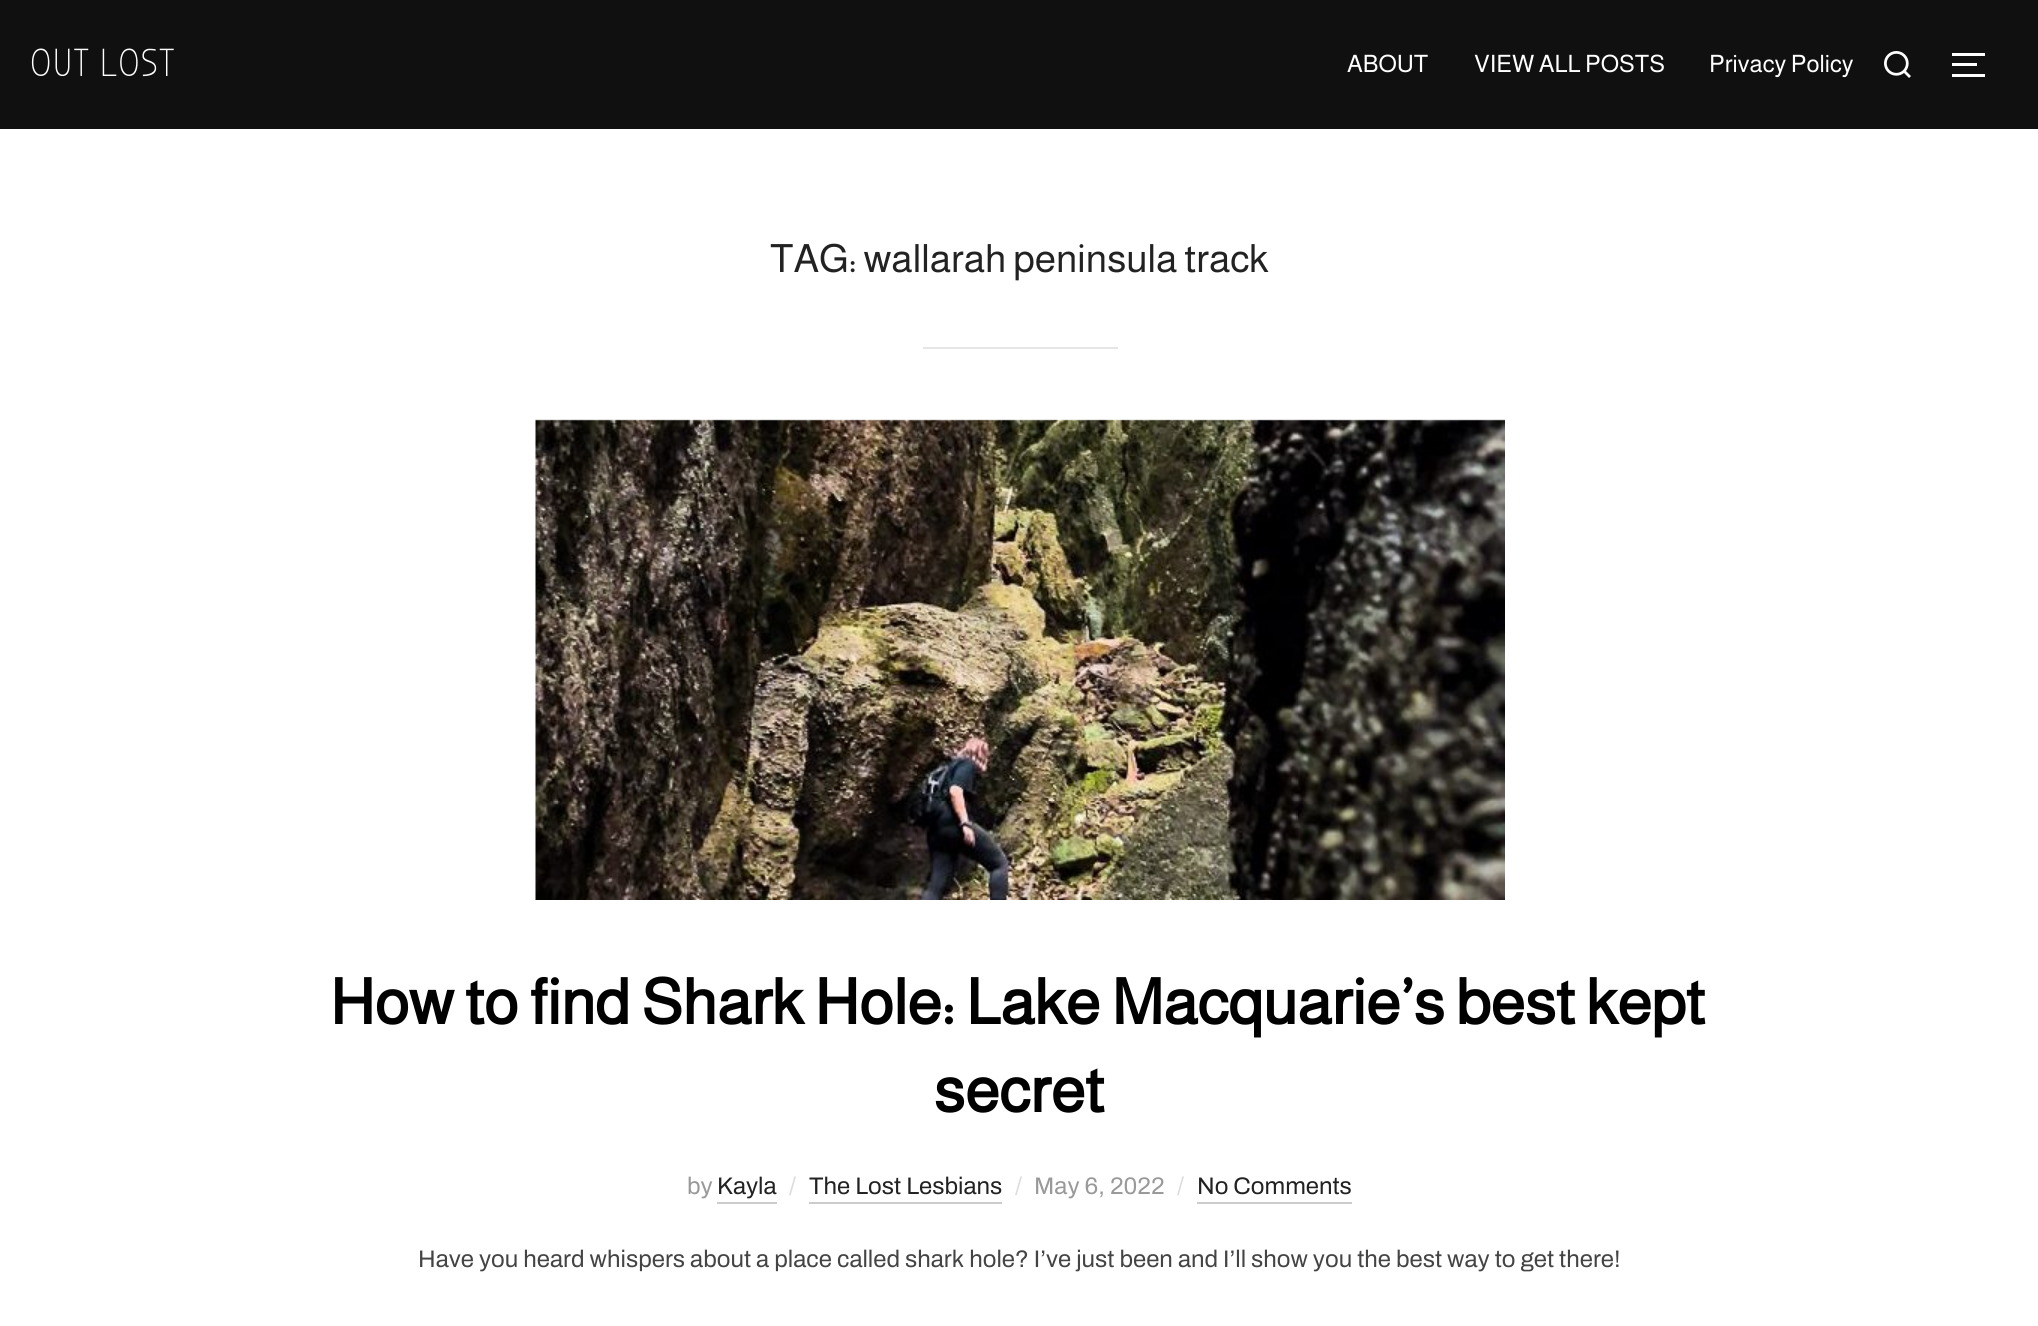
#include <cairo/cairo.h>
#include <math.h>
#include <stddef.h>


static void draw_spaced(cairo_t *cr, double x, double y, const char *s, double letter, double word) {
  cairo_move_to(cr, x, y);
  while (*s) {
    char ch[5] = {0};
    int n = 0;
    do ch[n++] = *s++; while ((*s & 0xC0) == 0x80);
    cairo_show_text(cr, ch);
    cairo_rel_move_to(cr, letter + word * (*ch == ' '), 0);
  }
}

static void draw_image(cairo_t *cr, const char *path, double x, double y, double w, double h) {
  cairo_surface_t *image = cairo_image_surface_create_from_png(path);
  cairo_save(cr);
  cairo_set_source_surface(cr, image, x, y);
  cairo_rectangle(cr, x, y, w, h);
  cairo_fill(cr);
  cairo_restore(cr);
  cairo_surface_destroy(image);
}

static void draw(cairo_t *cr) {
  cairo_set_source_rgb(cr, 1, 1, 1);
  cairo_paint(cr);
  cairo_set_source_rgb(cr, 16 / 255.0, 16 / 255.0, 16 / 255.0);
  cairo_rectangle(cr, 0, 0, 2038, 129);
  cairo_fill(cr);
  draw_image(cr, "images/1.png", 1884, 51, 27, 27);
  cairo_set_source_rgb(cr, 1, 1, 1);
  cairo_rectangle(cr, 1952, 53, 33, 3);
  cairo_fill(cr);
  cairo_rectangle(cr, 1952, 63, 25, 3);
  cairo_fill(cr);
  cairo_rectangle(cr, 1952, 74, 33, 3);
  cairo_fill(cr);
  cairo_set_source_rgb(cr, 230 / 255.0, 230 / 255.0, 230 / 255.0);
  cairo_rectangle(cr, 923, 347, 195, 2);
  cairo_fill(cr);
  draw_image(cr, "images/2.png", 535, 419, 970, 481);
  cairo_set_source_rgb(cr, 204 / 255.0, 204 / 255.0, 204 / 255.0);
  cairo_rectangle(cr, 717, 1202, 60, 2);
  cairo_fill(cr);
  cairo_rectangle(cr, 809, 1202, 193, 2);
  cairo_fill(cr);
  cairo_rectangle(cr, 1197, 1202, 155, 2);
  cairo_fill(cr);
  cairo_select_font_face(cr, "Bubbler One", CAIRO_FONT_SLANT_NORMAL, CAIRO_FONT_WEIGHT_NORMAL);
  cairo_set_font_size(cr, 39);
  cairo_set_source_rgb(cr, 1, 1, 1);
  draw_spaced(cr, 30, 76, "OUT LOST", 1.5, 0);
  cairo_select_font_face(cr, "Almarai", CAIRO_FONT_SLANT_NORMAL, CAIRO_FONT_WEIGHT_NORMAL);
  cairo_set_font_size(cr, 24);
  cairo_move_to(cr, 1347, 72);
  cairo_show_text(cr, "ABOUT");
  cairo_move_to(cr, 1474, 72);
  cairo_show_text(cr, "VIEW ALL POSTS");
  cairo_move_to(cr, 1709, 72);
  cairo_show_text(cr, "Privacy Policy");
  cairo_set_font_size(cr, 39);
  cairo_set_source_rgb(cr, 34 / 255.0, 34 / 255.0, 34 / 255.0);
  cairo_move_to(cr, 770, 272);
  cairo_show_text(cr, "TAG: wallarah peninsula track");
  cairo_select_font_face(cr, "Almarai", CAIRO_FONT_SLANT_NORMAL, CAIRO_FONT_WEIGHT_BOLD);
  cairo_set_font_size(cr, 63);
  cairo_set_source_rgb(cr, 0, 0, 0);
  cairo_move_to(cr, 330, 1024);
  cairo_show_text(cr, "How to find Shark Hole: Lake Macquarie’s best kept");
  cairo_move_to(cr, 934, 1112);
  cairo_show_text(cr, "secret");
  cairo_select_font_face(cr, "Archivo SemiBold", CAIRO_FONT_SLANT_NORMAL, CAIRO_FONT_WEIGHT_NORMAL);
  cairo_set_font_size(cr, 24);
  cairo_set_source_rgb(cr, 153 / 255.0, 153 / 255.0, 153 / 255.0);
  cairo_move_to(cr, 687, 1194);
  cairo_show_text(cr, "by");
  cairo_set_source_rgb(cr, 34 / 255.0, 34 / 255.0, 34 / 255.0);
  cairo_move_to(cr, 717, 1194);
  cairo_show_text(cr, "Kayla");
  cairo_set_source_rgb(cr, 219 / 255.0, 221 / 255.0, 221 / 255.0);
  cairo_move_to(cr, 789, 1194);
  cairo_show_text(cr, "/");
  cairo_set_source_rgb(cr, 34 / 255.0, 34 / 255.0, 34 / 255.0);
  cairo_move_to(cr, 809, 1194);
  cairo_show_text(cr, "The Lost Lesbians");
  cairo_set_source_rgb(cr, 219 / 255.0, 221 / 255.0, 221 / 255.0);
  cairo_move_to(cr, 1015, 1194);
  cairo_show_text(cr, "/");
  cairo_set_source_rgb(cr, 153 / 255.0, 153 / 255.0, 153 / 255.0);
  cairo_move_to(cr, 1034, 1194);
  cairo_show_text(cr, "May 6, 2022");
  cairo_set_source_rgb(cr, 219 / 255.0, 221 / 255.0, 221 / 255.0);
  cairo_move_to(cr, 1177, 1194);
  cairo_show_text(cr, "/");
  cairo_set_source_rgb(cr, 34 / 255.0, 34 / 255.0, 34 / 255.0);
  cairo_move_to(cr, 1197, 1194);
  cairo_show_text(cr, "No Comments");
  cairo_set_source_rgb(cr, 68 / 255.0, 68 / 255.0, 68 / 255.0);
  cairo_move_to(cr, 418, 1267);
  cairo_show_text(cr, "Have you heard whispers about a place called shark hole? I’ve just been and I’ll show you the best way to get there!");
}

int main(void) {
  cairo_surface_t *surface = cairo_image_surface_create(CAIRO_FORMAT_RGB24, 2038, 1326);
  cairo_t *cr = cairo_create(surface);
  cairo_font_options_t *options = cairo_font_options_create();
  cairo_font_options_set_hint_metrics(options, CAIRO_HINT_METRICS_OFF);
  cairo_font_options_set_hint_style(options, CAIRO_HINT_STYLE_NONE);
  cairo_set_font_options(cr, options);
  cairo_set_miter_limit(cr, 4);
  draw(cr);
  cairo_surface_write_to_png(surface, "out.png");
  cairo_font_options_destroy(options);
  cairo_destroy(cr);
  cairo_surface_destroy(surface);
  return 0;
}
